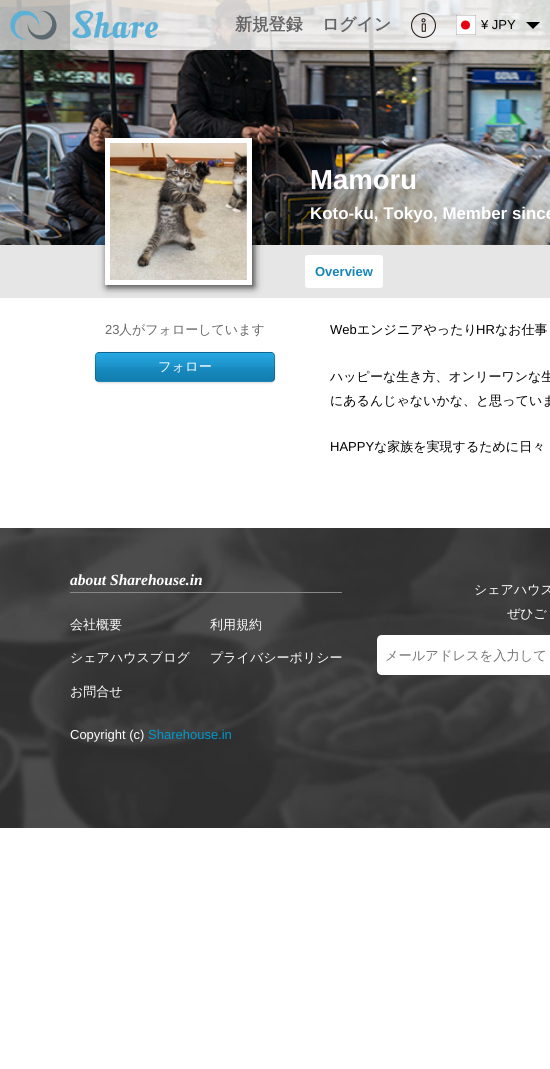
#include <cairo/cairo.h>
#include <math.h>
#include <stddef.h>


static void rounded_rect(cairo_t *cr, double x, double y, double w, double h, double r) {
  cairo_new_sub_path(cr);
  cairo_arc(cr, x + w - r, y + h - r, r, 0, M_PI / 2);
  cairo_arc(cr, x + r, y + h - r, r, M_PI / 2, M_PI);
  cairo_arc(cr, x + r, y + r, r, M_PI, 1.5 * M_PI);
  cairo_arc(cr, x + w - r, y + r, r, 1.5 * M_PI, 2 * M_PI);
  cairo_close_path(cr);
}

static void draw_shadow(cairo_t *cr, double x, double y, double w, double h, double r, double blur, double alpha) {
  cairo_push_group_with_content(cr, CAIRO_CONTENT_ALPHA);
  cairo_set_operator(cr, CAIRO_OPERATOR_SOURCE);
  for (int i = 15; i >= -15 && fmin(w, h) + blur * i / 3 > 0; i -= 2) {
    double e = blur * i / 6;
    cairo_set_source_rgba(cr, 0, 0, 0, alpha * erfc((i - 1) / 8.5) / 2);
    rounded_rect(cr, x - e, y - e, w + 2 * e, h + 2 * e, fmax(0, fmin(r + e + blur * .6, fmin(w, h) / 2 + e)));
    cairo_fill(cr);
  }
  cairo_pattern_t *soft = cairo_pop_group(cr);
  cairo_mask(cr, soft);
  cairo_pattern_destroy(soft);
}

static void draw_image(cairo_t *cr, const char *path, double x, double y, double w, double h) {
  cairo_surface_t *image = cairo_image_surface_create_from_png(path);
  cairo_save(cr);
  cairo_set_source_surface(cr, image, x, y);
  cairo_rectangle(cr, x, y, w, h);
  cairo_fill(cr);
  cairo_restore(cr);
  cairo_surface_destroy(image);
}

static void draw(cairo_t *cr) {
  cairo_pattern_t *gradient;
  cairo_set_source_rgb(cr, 1, 1, 1);
  cairo_paint(cr);
  draw_image(cr, "images/4.png", 0, 0, 550, 245);
  cairo_set_source_rgba(cr, 1, 1, 1, 0.8);
  cairo_rectangle(cr, 0, 0, 550, 50);
  cairo_fill(cr);
  cairo_set_source_rgba(cr, 0, 0, 0, 0.15);
  cairo_rectangle(cr, 0, 0, 70, 50);
  cairo_fill(cr);
  draw_image(cr, "images/1.png", 10, 10, 47, 30);
  draw_image(cr, "images/2.png", 72, 10, 86, 29);
  draw_image(cr, "images/3.png", 411, 13, 25, 25);
  cairo_set_source_rgb(cr, 1, 1, 1);
  cairo_rectangle(cr, 456, 15, 20, 20);
  cairo_fill(cr);
  cairo_save(cr);
  cairo_rectangle(cr, 456, 15, 20, 20);
  cairo_clip(cr);
  cairo_new_path(cr);
  cairo_move_to(cr, 456, 15);
  cairo_line_to(cr, 476, 15);
  cairo_line_to(cr, 476, 35);
  cairo_line_to(cr, 456, 35);
  cairo_close_path(cr);
  cairo_set_source_rgb(cr, 112 / 255.0, 112 / 255.0, 112 / 255.0);
  cairo_set_line_width(cr, 0.6);
  cairo_stroke(cr);
  cairo_restore(cr);
  cairo_set_source_rgb(cr, 230 / 255.0, 0, 18 / 255.0);
  cairo_arc(cr, 465.5, 25, 4.5, 0, 2 * M_PI);
  cairo_fill(cr);
  cairo_set_source_rgb(cr, 0, 0, 0);
  cairo_new_path(cr);
  cairo_move_to(cr, 526, 22);
  cairo_line_to(cr, 540, 22);
  cairo_line_to(cr, 533, 29);
  cairo_close_path(cr);
  cairo_fill(cr);
  cairo_set_source_rgb(cr, 230 / 255.0, 230 / 255.0, 230 / 255.0);
  cairo_rectangle(cr, 0, 245, 550, 53);
  cairo_fill(cr);
  cairo_set_source_rgb(cr, 0, 0, 0);
  draw_shadow(cr, 107, 140, 147, 147, 0, 4, 0.8);
  cairo_set_source_rgb(cr, 1, 1, 1);
  cairo_rectangle(cr, 105, 138, 147, 147);
  cairo_fill(cr);
  draw_image(cr, "images/5.png", 110, 143, 137, 137);
  rounded_rect(cr, 305, 255, 78, 33, 3);
  cairo_fill(cr);
  cairo_set_source_rgb(cr, 0, 0, 0);
  draw_shadow(cr, 95, 353, 180, 30, 4, 1, 0.15);
  cairo_save(cr);
  rounded_rect(cr, 95, 352, 180, 30, 4);
  cairo_clip(cr);
  gradient = cairo_pattern_create_linear(185, 325, 185, 353);
  cairo_pattern_add_color_stop_rgba(gradient, 0, 37 / 255.0, 168 / 255.0, 227 / 255.0, 1);
  cairo_pattern_add_color_stop_rgba(gradient, 0.49, 28 / 255.0, 146 / 255.0, 200 / 255.0, 1);
  cairo_pattern_add_color_stop_rgba(gradient, 0.51, 24 / 255.0, 139 / 255.0, 193 / 255.0, 1);
  cairo_pattern_add_color_stop_rgba(gradient, 1, 18 / 255.0, 126 / 255.0, 175 / 255.0, 1);
  cairo_set_source(cr, gradient);
  cairo_pattern_destroy(gradient);
  cairo_rectangle(cr, 95, 352, 180, 1);
  cairo_fill(cr);
  gradient = cairo_pattern_create_linear(185, 353, 185, 381);
  cairo_pattern_add_color_stop_rgba(gradient, 0, 37 / 255.0, 168 / 255.0, 227 / 255.0, 1);
  cairo_pattern_add_color_stop_rgba(gradient, 0.49, 28 / 255.0, 146 / 255.0, 200 / 255.0, 1);
  cairo_pattern_add_color_stop_rgba(gradient, 0.51, 24 / 255.0, 139 / 255.0, 193 / 255.0, 1);
  cairo_pattern_add_color_stop_rgba(gradient, 1, 18 / 255.0, 126 / 255.0, 175 / 255.0, 1);
  cairo_set_source(cr, gradient);
  cairo_pattern_destroy(gradient);
  cairo_rectangle(cr, 95, 353, 180, 28);
  cairo_fill(cr);
  gradient = cairo_pattern_create_linear(185, 381, 185, 409);
  cairo_pattern_add_color_stop_rgba(gradient, 0, 37 / 255.0, 168 / 255.0, 227 / 255.0, 1);
  cairo_pattern_add_color_stop_rgba(gradient, 0.49, 28 / 255.0, 146 / 255.0, 200 / 255.0, 1);
  cairo_pattern_add_color_stop_rgba(gradient, 0.51, 24 / 255.0, 139 / 255.0, 193 / 255.0, 1);
  cairo_pattern_add_color_stop_rgba(gradient, 1, 18 / 255.0, 126 / 255.0, 175 / 255.0, 1);
  cairo_set_source(cr, gradient);
  cairo_pattern_destroy(gradient);
  cairo_rectangle(cr, 95, 381, 180, 1);
  cairo_fill(cr);
  cairo_restore(cr);
  rounded_rect(cr, 95.5, 352.5, 179, 29, 3.5);
  cairo_set_source_rgba(cr, 0, 0, 0, 0.2);
  cairo_set_line_width(cr, 1);
  cairo_stroke(cr);
  draw_image(cr, "images/6.png", 0, 528, 550, 300);
  cairo_set_source_rgb(cr, 136 / 255.0, 136 / 255.0, 136 / 255.0);
  cairo_rectangle(cr, 70, 592, 272, 1);
  cairo_fill(cr);
  cairo_set_source_rgb(cr, 1, 1, 1);
  cairo_new_path(cr);
  cairo_move_to(cr, 382, 635);
  cairo_line_to(cr, 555, 635);
  cairo_line_to(cr, 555, 675);
  cairo_line_to(cr, 382, 675);
  cairo_curve_to(cr, 379, 675, 377, 673, 377, 670);
  cairo_line_to(cr, 377, 640);
  cairo_curve_to(cr, 377, 637, 379, 635, 382, 635);
  cairo_close_path(cr);
  cairo_fill(cr);
  cairo_select_font_face(cr, "WenQuanYi Zen Hei", CAIRO_FONT_SLANT_NORMAL, CAIRO_FONT_WEIGHT_BOLD);
  cairo_set_font_size(cr, 16.9);
  cairo_set_source_rgb(cr, 102 / 255.0, 102 / 255.0, 102 / 255.0);
  cairo_move_to(cr, 235, 30);
  cairo_show_text(cr, "新規登録");
  cairo_move_to(cr, 322, 30);
  cairo_show_text(cr, "ログイン");
  cairo_select_font_face(cr, "Liberation Sans", CAIRO_FONT_SLANT_NORMAL, CAIRO_FONT_WEIGHT_NORMAL);
  cairo_set_font_size(cr, 13);
  cairo_set_source_rgb(cr, 0, 0, 0);
  cairo_move_to(cr, 481, 29);
  cairo_show_text(cr, "¥ JPY");
  cairo_select_font_face(cr, "Liberation Sans", CAIRO_FONT_SLANT_NORMAL, CAIRO_FONT_WEIGHT_BOLD);
  cairo_set_font_size(cr, 27.5);
  cairo_set_source_rgb(cr, 1, 1, 1);
  cairo_move_to(cr, 310, 189);
  cairo_show_text(cr, "Mamoru");
  cairo_set_font_size(cr, 16.9);
  cairo_move_to(cr, 310, 219);
  cairo_show_text(cr, "Koto-ku, Tokyo, Member since");
  cairo_set_font_size(cr, 13);
  cairo_set_source_rgb(cr, 21 / 255.0, 132 / 255.0, 185 / 255.0);
  cairo_move_to(cr, 315, 276);
  cairo_show_text(cr, "Overview");
  cairo_select_font_face(cr, "Liberation Sans", CAIRO_FONT_SLANT_NORMAL, CAIRO_FONT_WEIGHT_NORMAL);
  cairo_set_source_rgb(cr, 102 / 255.0, 102 / 255.0, 102 / 255.0);
  cairo_move_to(cr, 105, 334);
  cairo_show_text(cr, "23");
  cairo_select_font_face(cr, "WenQuanYi Zen Hei Medium", CAIRO_FONT_SLANT_NORMAL, CAIRO_FONT_WEIGHT_NORMAL);
  cairo_move_to(cr, 119, 334);
  cairo_show_text(cr, "人がフォローしています");
  cairo_set_font_size(cr, 13.25);
  cairo_set_source_rgb(cr, 1, 1, 1);
  cairo_move_to(cr, 158, 371);
  cairo_show_text(cr, "フォロー");
  cairo_select_font_face(cr, "Liberation Sans", CAIRO_FONT_SLANT_NORMAL, CAIRO_FONT_WEIGHT_NORMAL);
  cairo_set_font_size(cr, 13);
  cairo_set_source_rgb(cr, 0, 0, 0);
  cairo_move_to(cr, 330, 334);
  cairo_show_text(cr, "Web");
  cairo_select_font_face(cr, "WenQuanYi Zen Hei Medium", CAIRO_FONT_SLANT_NORMAL, CAIRO_FONT_WEIGHT_NORMAL);
  cairo_move_to(cr, 357, 334);
  cairo_show_text(cr, "エンジニアやったり");
  cairo_select_font_face(cr, "Liberation Sans", CAIRO_FONT_SLANT_NORMAL, CAIRO_FONT_WEIGHT_NORMAL);
  cairo_move_to(cr, 476, 334);
  cairo_show_text(cr, "HR");
  cairo_select_font_face(cr, "WenQuanYi Zen Hei Medium", CAIRO_FONT_SLANT_NORMAL, CAIRO_FONT_WEIGHT_NORMAL);
  cairo_move_to(cr, 495, 334);
  cairo_show_text(cr, "なお仕事");
  cairo_move_to(cr, 330, 381);
  cairo_show_text(cr, "ハッピーな生き方、オンリーワンな生");
  cairo_move_to(cr, 330, 405);
  cairo_show_text(cr, "にあるんじゃないかな、と思っていま");
  cairo_select_font_face(cr, "Liberation Sans", CAIRO_FONT_SLANT_NORMAL, CAIRO_FONT_WEIGHT_NORMAL);
  cairo_move_to(cr, 330, 451);
  cairo_show_text(cr, "HAPPY");
  cairo_select_font_face(cr, "WenQuanYi Zen Hei Medium", CAIRO_FONT_SLANT_NORMAL, CAIRO_FONT_WEIGHT_NORMAL);
  cairo_move_to(cr, 374, 451);
  cairo_show_text(cr, "な家族を実現するために日々");
  cairo_select_font_face(cr, "Liberation Serif", CAIRO_FONT_SLANT_ITALIC, CAIRO_FONT_WEIGHT_BOLD);
  cairo_set_font_size(cr, 15.5);
  cairo_set_source_rgb(cr, 1, 1, 1);
  cairo_move_to(cr, 70, 585);
  cairo_show_text(cr, "about Sharehouse.in");
  cairo_select_font_face(cr, "WenQuanYi Zen Hei Medium", CAIRO_FONT_SLANT_NORMAL, CAIRO_FONT_WEIGHT_NORMAL);
  cairo_set_font_size(cr, 13);
  cairo_move_to(cr, 70, 629);
  cairo_show_text(cr, "会社概要");
  cairo_move_to(cr, 70, 662);
  cairo_show_text(cr, "シェアハウスブログ");
  cairo_move_to(cr, 70, 696);
  cairo_show_text(cr, "お問合せ");
  cairo_move_to(cr, 210, 629);
  cairo_show_text(cr, "利用規約");
  cairo_move_to(cr, 210, 662);
  cairo_show_text(cr, "プライバシーポリシー");
  cairo_move_to(cr, 474, 594);
  cairo_show_text(cr, "シェアハウス");
  cairo_move_to(cr, 507, 618);
  cairo_show_text(cr, "ぜひご");
  cairo_set_font_size(cr, 13.25);
  cairo_set_source_rgb(cr, 117 / 255.0, 117 / 255.0, 117 / 255.0);
  cairo_move_to(cr, 385, 660);
  cairo_show_text(cr, "メールアドレスを入力して");
  cairo_select_font_face(cr, "Liberation Sans", CAIRO_FONT_SLANT_NORMAL, CAIRO_FONT_WEIGHT_NORMAL);
  cairo_set_font_size(cr, 13);
  cairo_set_source_rgb(cr, 1, 1, 1);
  cairo_move_to(cr, 70, 739);
  cairo_show_text(cr, "Copyright (c)");
  cairo_set_source_rgb(cr, 0, 153 / 255.0, 204 / 255.0);
  cairo_move_to(cr, 148, 739);
  cairo_show_text(cr, "Sharehouse.in");
}

int main(void) {
  cairo_surface_t *surface = cairo_image_surface_create(CAIRO_FORMAT_RGB24, 550, 1069);
  cairo_t *cr = cairo_create(surface);
  cairo_font_options_t *options = cairo_font_options_create();
  cairo_font_options_set_hint_metrics(options, CAIRO_HINT_METRICS_OFF);
  cairo_font_options_set_hint_style(options, CAIRO_HINT_STYLE_NONE);
  cairo_set_font_options(cr, options);
  cairo_set_miter_limit(cr, 4);
  draw(cr);
  cairo_surface_write_to_png(surface, "out.png");
  cairo_font_options_destroy(options);
  cairo_destroy(cr);
  cairo_surface_destroy(surface);
  return 0;
}
